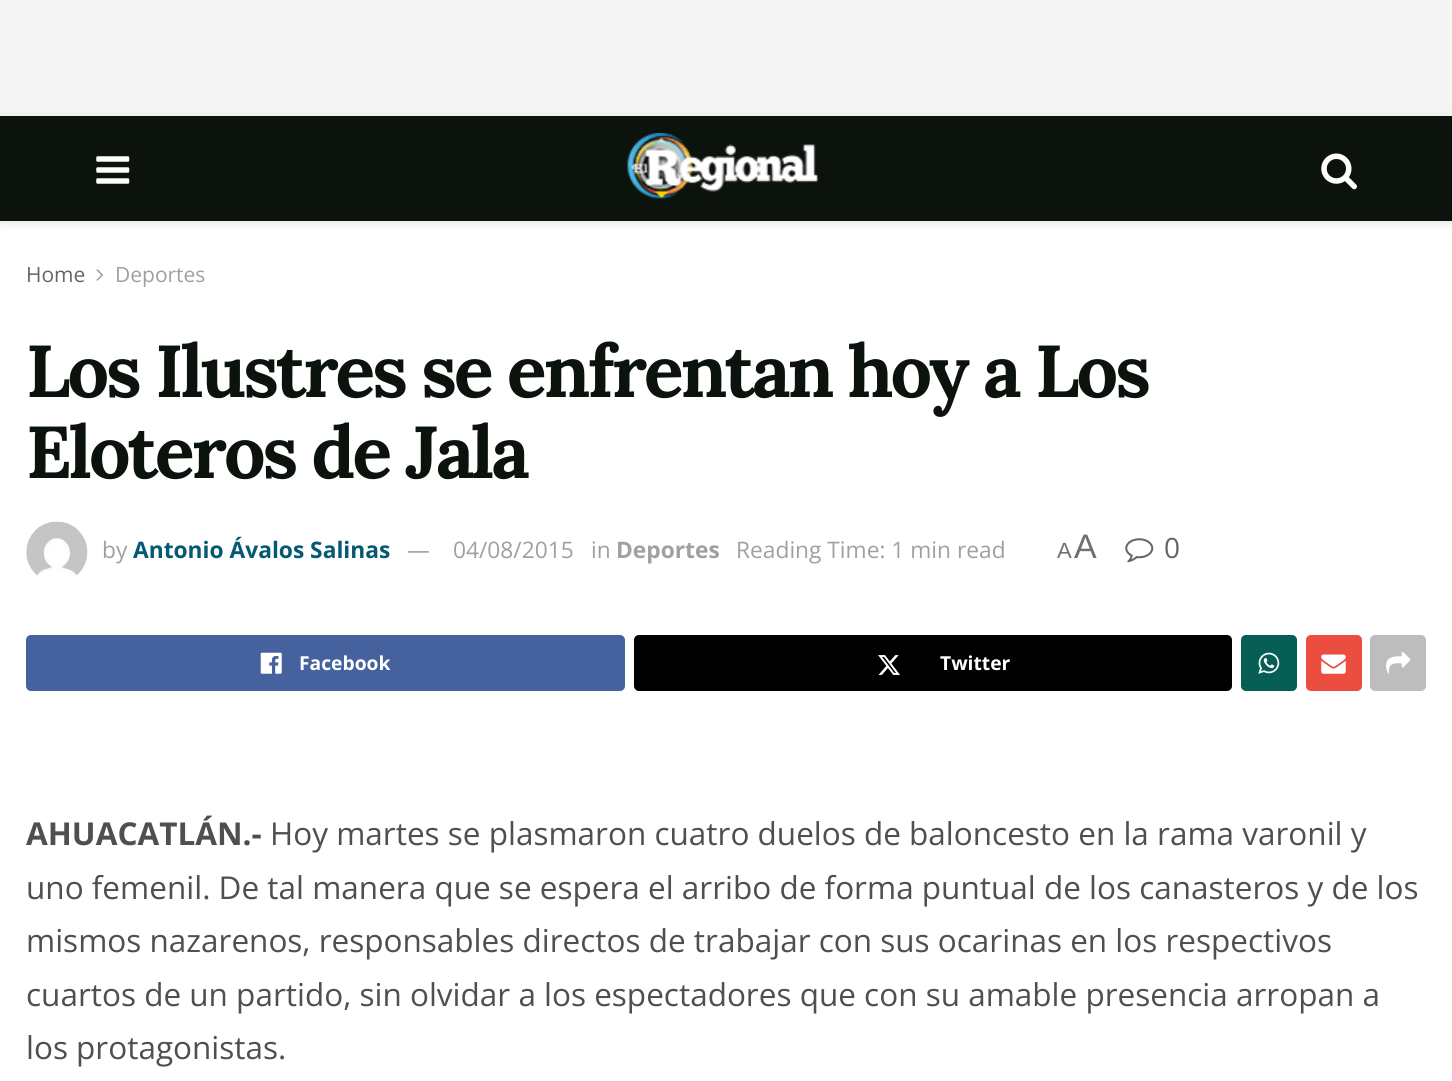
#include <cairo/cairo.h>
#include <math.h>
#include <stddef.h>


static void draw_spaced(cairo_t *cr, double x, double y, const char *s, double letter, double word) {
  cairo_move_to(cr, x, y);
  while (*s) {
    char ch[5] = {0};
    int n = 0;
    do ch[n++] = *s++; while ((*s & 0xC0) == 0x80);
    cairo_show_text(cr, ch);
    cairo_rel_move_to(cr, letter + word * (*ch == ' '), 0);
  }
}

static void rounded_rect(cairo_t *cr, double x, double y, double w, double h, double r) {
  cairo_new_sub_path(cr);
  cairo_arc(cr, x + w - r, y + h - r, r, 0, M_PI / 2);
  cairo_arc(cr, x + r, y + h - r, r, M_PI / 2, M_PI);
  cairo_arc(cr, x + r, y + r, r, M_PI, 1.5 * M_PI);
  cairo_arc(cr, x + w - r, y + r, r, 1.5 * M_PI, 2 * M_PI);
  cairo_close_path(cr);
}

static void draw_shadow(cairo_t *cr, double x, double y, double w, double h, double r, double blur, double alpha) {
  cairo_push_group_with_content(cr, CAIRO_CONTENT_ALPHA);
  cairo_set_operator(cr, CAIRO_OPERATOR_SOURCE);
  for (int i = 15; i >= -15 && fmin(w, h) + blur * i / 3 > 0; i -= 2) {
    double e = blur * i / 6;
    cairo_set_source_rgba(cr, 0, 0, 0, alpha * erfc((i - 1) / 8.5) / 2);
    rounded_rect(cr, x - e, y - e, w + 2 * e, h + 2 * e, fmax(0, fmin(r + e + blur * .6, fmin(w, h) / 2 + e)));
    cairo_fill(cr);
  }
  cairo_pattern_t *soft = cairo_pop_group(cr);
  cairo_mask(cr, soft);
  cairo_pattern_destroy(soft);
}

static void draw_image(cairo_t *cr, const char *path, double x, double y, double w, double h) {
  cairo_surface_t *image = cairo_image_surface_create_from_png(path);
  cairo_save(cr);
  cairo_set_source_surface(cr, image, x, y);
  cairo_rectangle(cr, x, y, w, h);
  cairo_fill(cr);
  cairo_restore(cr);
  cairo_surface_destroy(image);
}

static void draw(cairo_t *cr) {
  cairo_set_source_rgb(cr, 1, 1, 1);
  cairo_paint(cr);
  cairo_set_source_rgb(cr, 245 / 255.0, 245 / 255.0, 245 / 255.0);
  cairo_rectangle(cr, 0, 0, 1452, 116);
  cairo_fill(cr);
  cairo_set_source_rgb(cr, 0, 0, 0);
  draw_shadow(cr, 0, 119, 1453, 105, 0, 5, 0.1);
  cairo_set_source_rgb(cr, 12 / 255.0, 18 / 255.0, 12 / 255.0);
  cairo_rectangle(cr, 0, 116, 1452, 105);
  cairo_fill(cr);
  draw_image(cr, "images/1.png", 96, 156, 34, 28);
  draw_image(cr, "images/2.png", 626, 133, 193, 66);
  draw_image(cr, "images/3.png", 1321, 153, 36, 37);
  draw_image(cr, "images/4.png", 96, 269, 8, 12);
  draw_image(cr, "images/5.png", 26, 521, 62, 55);
  draw_image(cr, "images/6.png", 1125, 538, 29, 25);
  cairo_set_source_rgb(cr, 69 / 255.0, 98 / 255.0, 159 / 255.0);
  rounded_rect(cr, 26, 635, 599, 56, 5);
  cairo_fill(cr);
  draw_image(cr, "images/7.png", 260, 652, 22, 22);
  cairo_set_source_rgb(cr, 0, 0, 0);
  rounded_rect(cr, 634, 635, 598, 56, 5);
  cairo_fill(cr);
  draw_image(cr, "images/8.png", 878, 655, 22, 20);
  cairo_set_source_rgb(cr, 7 / 255.0, 94 / 255.0, 84 / 255.0);
  rounded_rect(cr, 1241, 635, 56, 56, 5);
  cairo_fill(cr);
  draw_image(cr, "images/9.png", 1258, 652, 22, 22);
  cairo_set_source_rgb(cr, 235 / 255.0, 77 / 255.0, 63 / 255.0);
  rounded_rect(cr, 1306, 635, 56, 56, 5);
  cairo_fill(cr);
  draw_image(cr, "images/10.png", 1321, 654, 25, 20);
  cairo_set_source_rgb(cr, 189 / 255.0, 189 / 255.0, 189 / 255.0);
  rounded_rect(cr, 1370, 635, 56, 56, 5);
  cairo_fill(cr);
  draw_image(cr, "images/11.png", 1386, 652, 25, 22);
  cairo_select_font_face(cr, "Open Sans", CAIRO_FONT_SLANT_NORMAL, CAIRO_FONT_WEIGHT_NORMAL);
  cairo_set_font_size(cr, 21);
  cairo_set_source_rgb(cr, 102 / 255.0, 102 / 255.0, 102 / 255.0);
  cairo_move_to(cr, 26, 282);
  cairo_show_text(cr, "Home");
  cairo_set_source_rgb(cr, 160 / 255.0, 160 / 255.0, 160 / 255.0);
  cairo_move_to(cr, 115, 282);
  cairo_show_text(cr, "Deportes");
  cairo_select_font_face(cr, "Lora", CAIRO_FONT_SLANT_NORMAL, CAIRO_FONT_WEIGHT_BOLD);
  cairo_set_font_size(cr, 73.5);
  cairo_set_source_rgb(cr, 12 / 255.0, 18 / 255.0, 12 / 255.0);
  draw_spaced(cr, 26, 397, "Los Ilustres se enfrentan hoy a Los", -2.95, 0);
  draw_spaced(cr, 26, 478, "Eloteros de Jala", -2.95, 0);
  cairo_select_font_face(cr, "Open Sans", CAIRO_FONT_SLANT_NORMAL, CAIRO_FONT_WEIGHT_NORMAL);
  cairo_set_font_size(cr, 22.75);
  cairo_set_source_rgb(cr, 160 / 255.0, 160 / 255.0, 160 / 255.0);
  cairo_move_to(cr, 102, 558);
  cairo_show_text(cr, "by");
  cairo_select_font_face(cr, "Open Sans", CAIRO_FONT_SLANT_NORMAL, CAIRO_FONT_WEIGHT_BOLD);
  cairo_set_source_rgb(cr, 4 / 255.0, 89 / 255.0, 115 / 255.0);
  cairo_move_to(cr, 133, 558);
  cairo_show_text(cr, "Antonio Ávalos Salinas");
  cairo_select_font_face(cr, "Open Sans", CAIRO_FONT_SLANT_NORMAL, CAIRO_FONT_WEIGHT_NORMAL);
  cairo_set_source_rgb(cr, 160 / 255.0, 160 / 255.0, 160 / 255.0);
  cairo_move_to(cr, 407, 558);
  cairo_show_text(cr, "—");
  cairo_move_to(cr, 453, 558);
  cairo_show_text(cr, "04/08/2015");
  cairo_move_to(cr, 591, 558);
  cairo_show_text(cr, "in");
  cairo_select_font_face(cr, "Open Sans", CAIRO_FONT_SLANT_NORMAL, CAIRO_FONT_WEIGHT_BOLD);
  cairo_move_to(cr, 616, 558);
  cairo_show_text(cr, "Deportes");
  cairo_select_font_face(cr, "Open Sans", CAIRO_FONT_SLANT_NORMAL, CAIRO_FONT_WEIGHT_NORMAL);
  cairo_move_to(cr, 736, 558);
  cairo_show_text(cr, "Reading Time: 1 min read");
  cairo_select_font_face(cr, "Liberation Sans", CAIRO_FONT_SLANT_NORMAL, CAIRO_FONT_WEIGHT_NORMAL);
  cairo_set_font_size(cr, 22);
  cairo_set_source_rgb(cr, 112 / 255.0, 112 / 255.0, 112 / 255.0);
  cairo_move_to(cr, 1057, 558);
  cairo_show_text(cr, "A");
  cairo_set_font_size(cr, 34);
  cairo_move_to(cr, 1074, 558);
  cairo_show_text(cr, "A");
  cairo_select_font_face(cr, "Open Sans", CAIRO_FONT_SLANT_NORMAL, CAIRO_FONT_WEIGHT_NORMAL);
  cairo_set_font_size(cr, 28);
  cairo_set_source_rgb(cr, 102 / 255.0, 102 / 255.0, 102 / 255.0);
  cairo_move_to(cr, 1164, 558);
  cairo_show_text(cr, "0");
  cairo_select_font_face(cr, "Open Sans", CAIRO_FONT_SLANT_NORMAL, CAIRO_FONT_WEIGHT_BOLD);
  cairo_set_font_size(cr, 19.25);
  cairo_set_source_rgb(cr, 1, 1, 1);
  cairo_move_to(cr, 299, 670);
  cairo_show_text(cr, "Facebook");
  cairo_move_to(cr, 940, 670);
  cairo_show_text(cr, "Twitter");
  cairo_set_font_size(cr, 31.5);
  cairo_set_source_rgb(cr, 79 / 255.0, 79 / 255.0, 79 / 255.0);
  cairo_move_to(cr, 26, 845);
  cairo_show_text(cr, "AHUACATLÁN.-");
  cairo_select_font_face(cr, "Open Sans", CAIRO_FONT_SLANT_NORMAL, CAIRO_FONT_WEIGHT_NORMAL);
  cairo_move_to(cr, 270, 845);
  cairo_show_text(cr, "Hoy martes se plasmaron cuatro duelos de baloncesto en la rama varonil y");
  cairo_move_to(cr, 26, 899);
  cairo_show_text(cr, "uno femenil. De tal manera que se espera el arribo de forma puntual de los canasteros y de los");
  cairo_move_to(cr, 26, 952);
  cairo_show_text(cr, "mismos nazarenos, responsables directos de trabajar con sus ocarinas en los respectivos");
  cairo_move_to(cr, 26, 1006);
  cairo_show_text(cr, "cuartos de un partido, sin olvidar a los espectadores que con su amable presencia arropan a");
  cairo_move_to(cr, 26, 1059);
  cairo_show_text(cr, "los protagonistas.");
}

int main(void) {
  cairo_surface_t *surface = cairo_image_surface_create(CAIRO_FORMAT_RGB24, 1452, 1081);
  cairo_t *cr = cairo_create(surface);
  cairo_font_options_t *options = cairo_font_options_create();
  cairo_font_options_set_hint_metrics(options, CAIRO_HINT_METRICS_OFF);
  cairo_font_options_set_hint_style(options, CAIRO_HINT_STYLE_NONE);
  cairo_set_font_options(cr, options);
  cairo_set_miter_limit(cr, 4);
  draw(cr);
  cairo_surface_write_to_png(surface, "out.png");
  cairo_font_options_destroy(options);
  cairo_destroy(cr);
  cairo_surface_destroy(surface);
  return 0;
}
